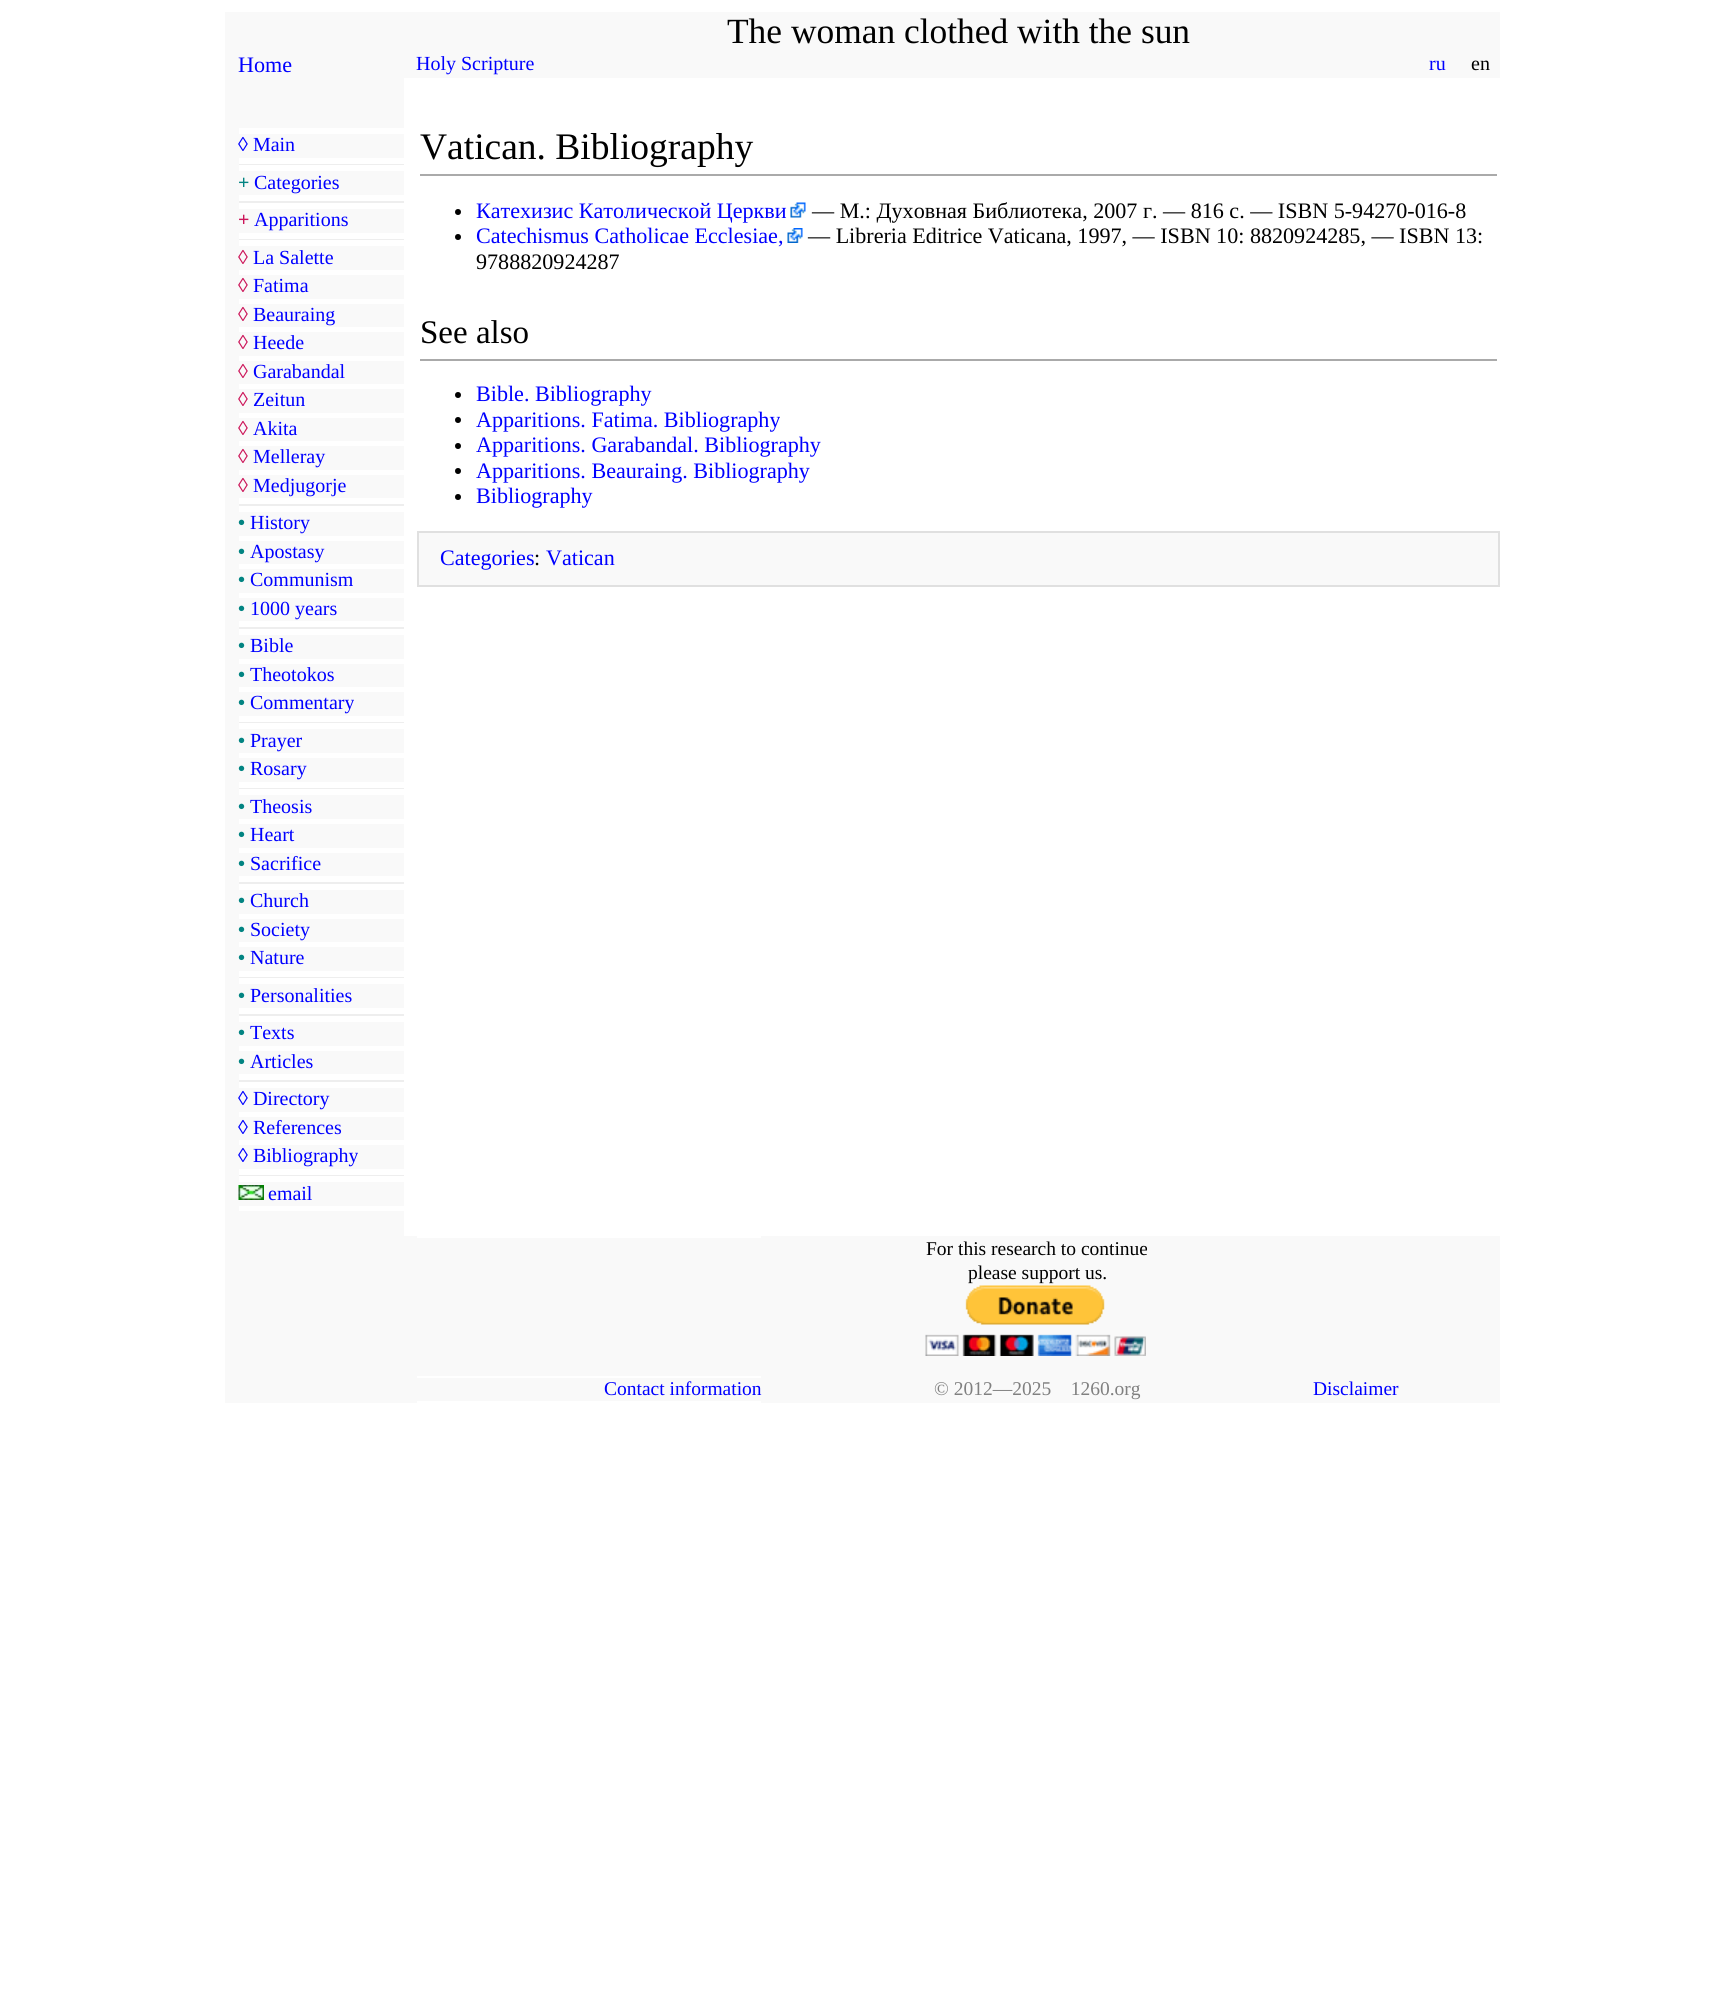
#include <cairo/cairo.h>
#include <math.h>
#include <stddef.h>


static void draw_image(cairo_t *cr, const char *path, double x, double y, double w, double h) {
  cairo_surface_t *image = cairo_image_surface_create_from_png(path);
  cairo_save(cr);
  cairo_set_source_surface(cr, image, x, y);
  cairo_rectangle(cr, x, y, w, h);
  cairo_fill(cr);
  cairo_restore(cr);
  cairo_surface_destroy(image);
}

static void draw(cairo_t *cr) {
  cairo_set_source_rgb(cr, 1, 1, 1);
  cairo_paint(cr);
  cairo_set_source_rgb(cr, 249 / 255.0, 249 / 255.0, 249 / 255.0);
  cairo_rectangle(cr, 225, 12, 1275, 41);
  cairo_fill(cr);
  cairo_rectangle(cr, 225, 53, 1275, 25);
  cairo_fill(cr);
  cairo_rectangle(cr, 225, 78, 179, 26);
  cairo_fill(cr);
  cairo_rectangle(cr, 225, 104, 14, 1299);
  cairo_fill(cr);
  cairo_rectangle(cr, 239, 104, 165, 1102);
  cairo_fill(cr);
  cairo_set_source_rgb(cr, 1, 1, 1);
  cairo_rectangle(cr, 239, 128, 165, 6);
  cairo_fill(cr);
  cairo_rectangle(cr, 239, 158, 165, 6);
  cairo_fill(cr);
  cairo_set_source_rgb(cr, 238 / 255.0, 238 / 255.0, 238 / 255.0);
  cairo_rectangle(cr, 239, 164, 165, 1);
  cairo_fill(cr);
  cairo_set_source_rgb(cr, 1, 1, 1);
  cairo_rectangle(cr, 239, 165, 165, 6);
  cairo_fill(cr);
  cairo_rectangle(cr, 239, 195, 165, 6);
  cairo_fill(cr);
  cairo_set_source_rgb(cr, 238 / 255.0, 238 / 255.0, 238 / 255.0);
  cairo_rectangle(cr, 239, 201, 165, 2);
  cairo_fill(cr);
  cairo_set_source_rgb(cr, 1, 1, 1);
  cairo_rectangle(cr, 239, 203, 165, 6);
  cairo_fill(cr);
  cairo_rectangle(cr, 239, 233, 165, 6);
  cairo_fill(cr);
  cairo_set_source_rgb(cr, 238 / 255.0, 238 / 255.0, 238 / 255.0);
  cairo_rectangle(cr, 239, 239, 165, 1);
  cairo_fill(cr);
  cairo_set_source_rgb(cr, 1, 1, 1);
  cairo_rectangle(cr, 239, 240, 165, 6);
  cairo_fill(cr);
  cairo_rectangle(cr, 239, 270, 165, 5);
  cairo_fill(cr);
  cairo_rectangle(cr, 239, 299, 165, 5);
  cairo_fill(cr);
  cairo_rectangle(cr, 239, 327, 165, 5);
  cairo_fill(cr);
  cairo_rectangle(cr, 239, 356, 165, 5);
  cairo_fill(cr);
  cairo_rectangle(cr, 239, 384, 165, 5);
  cairo_fill(cr);
  cairo_rectangle(cr, 239, 413, 165, 5);
  cairo_fill(cr);
  cairo_rectangle(cr, 239, 441, 165, 5);
  cairo_fill(cr);
  cairo_rectangle(cr, 239, 470, 165, 5);
  cairo_fill(cr);
  cairo_rectangle(cr, 239, 498, 165, 6);
  cairo_fill(cr);
  cairo_set_source_rgb(cr, 238 / 255.0, 238 / 255.0, 238 / 255.0);
  cairo_rectangle(cr, 239, 504, 165, 2);
  cairo_fill(cr);
  cairo_set_source_rgb(cr, 1, 1, 1);
  cairo_rectangle(cr, 239, 506, 165, 6);
  cairo_fill(cr);
  cairo_rectangle(cr, 239, 536, 165, 5);
  cairo_fill(cr);
  cairo_rectangle(cr, 239, 564, 165, 5);
  cairo_fill(cr);
  cairo_rectangle(cr, 239, 593, 165, 5);
  cairo_fill(cr);
  cairo_rectangle(cr, 239, 621, 165, 6);
  cairo_fill(cr);
  cairo_set_source_rgb(cr, 238 / 255.0, 238 / 255.0, 238 / 255.0);
  cairo_rectangle(cr, 239, 627, 165, 2);
  cairo_fill(cr);
  cairo_set_source_rgb(cr, 1, 1, 1);
  cairo_rectangle(cr, 239, 629, 165, 6);
  cairo_fill(cr);
  cairo_rectangle(cr, 239, 659, 165, 5);
  cairo_fill(cr);
  cairo_rectangle(cr, 239, 687, 165, 5);
  cairo_fill(cr);
  cairo_rectangle(cr, 239, 716, 165, 6);
  cairo_fill(cr);
  cairo_set_source_rgb(cr, 238 / 255.0, 238 / 255.0, 238 / 255.0);
  cairo_rectangle(cr, 239, 722, 165, 1);
  cairo_fill(cr);
  cairo_set_source_rgb(cr, 1, 1, 1);
  cairo_rectangle(cr, 239, 723, 165, 6);
  cairo_fill(cr);
  cairo_rectangle(cr, 239, 753, 165, 5);
  cairo_fill(cr);
  cairo_rectangle(cr, 239, 782, 165, 6);
  cairo_fill(cr);
  cairo_set_source_rgb(cr, 238 / 255.0, 238 / 255.0, 238 / 255.0);
  cairo_rectangle(cr, 239, 788, 165, 1);
  cairo_fill(cr);
  cairo_set_source_rgb(cr, 1, 1, 1);
  cairo_rectangle(cr, 239, 789, 165, 6);
  cairo_fill(cr);
  cairo_rectangle(cr, 239, 819, 165, 5);
  cairo_fill(cr);
  cairo_rectangle(cr, 239, 848, 165, 5);
  cairo_fill(cr);
  cairo_rectangle(cr, 239, 876, 165, 6);
  cairo_fill(cr);
  cairo_set_source_rgb(cr, 238 / 255.0, 238 / 255.0, 238 / 255.0);
  cairo_rectangle(cr, 239, 882, 165, 2);
  cairo_fill(cr);
  cairo_set_source_rgb(cr, 1, 1, 1);
  cairo_rectangle(cr, 239, 884, 165, 6);
  cairo_fill(cr);
  cairo_rectangle(cr, 239, 914, 165, 5);
  cairo_fill(cr);
  cairo_rectangle(cr, 239, 942, 165, 5);
  cairo_fill(cr);
  cairo_rectangle(cr, 239, 971, 165, 6);
  cairo_fill(cr);
  cairo_set_source_rgb(cr, 238 / 255.0, 238 / 255.0, 238 / 255.0);
  cairo_rectangle(cr, 239, 977, 165, 1);
  cairo_fill(cr);
  cairo_set_source_rgb(cr, 1, 1, 1);
  cairo_rectangle(cr, 239, 978, 165, 6);
  cairo_fill(cr);
  cairo_rectangle(cr, 239, 1008, 165, 6);
  cairo_fill(cr);
  cairo_set_source_rgb(cr, 238 / 255.0, 238 / 255.0, 238 / 255.0);
  cairo_rectangle(cr, 239, 1014, 165, 2);
  cairo_fill(cr);
  cairo_set_source_rgb(cr, 1, 1, 1);
  cairo_rectangle(cr, 239, 1016, 165, 6);
  cairo_fill(cr);
  cairo_rectangle(cr, 239, 1046, 165, 5);
  cairo_fill(cr);
  cairo_rectangle(cr, 239, 1074, 165, 6);
  cairo_fill(cr);
  cairo_set_source_rgb(cr, 238 / 255.0, 238 / 255.0, 238 / 255.0);
  cairo_rectangle(cr, 239, 1080, 165, 2);
  cairo_fill(cr);
  cairo_set_source_rgb(cr, 1, 1, 1);
  cairo_rectangle(cr, 239, 1082, 165, 6);
  cairo_fill(cr);
  cairo_rectangle(cr, 239, 1112, 165, 5);
  cairo_fill(cr);
  cairo_rectangle(cr, 239, 1140, 165, 5);
  cairo_fill(cr);
  cairo_rectangle(cr, 239, 1169, 165, 6);
  cairo_fill(cr);
  cairo_set_source_rgb(cr, 238 / 255.0, 238 / 255.0, 238 / 255.0);
  cairo_rectangle(cr, 239, 1175, 165, 1);
  cairo_fill(cr);
  cairo_set_source_rgb(cr, 1, 1, 1);
  cairo_rectangle(cr, 239, 1176, 165, 6);
  cairo_fill(cr);
  draw_image(cr, "images/1.png", 238, 1185, 26, 15);
  cairo_set_source_rgb(cr, 170 / 255.0, 170 / 255.0, 170 / 255.0);
  cairo_rectangle(cr, 420, 174, 1077, 2);
  cairo_fill(cr);
  cairo_set_source_rgb(cr, 0, 0, 0);
  cairo_arc(cr, 458, 212, 3, 0, 2 * M_PI);
  cairo_fill(cr);
  draw_image(cr, "images/2.png", 790, 202, 16, 16);
  cairo_arc(cr, 458, 237, 3, 0, 2 * M_PI);
  cairo_fill(cr);
  draw_image(cr, "images/3.png", 787, 228, 16, 15);
  cairo_set_source_rgb(cr, 170 / 255.0, 170 / 255.0, 170 / 255.0);
  cairo_rectangle(cr, 420, 359, 1077, 2);
  cairo_fill(cr);
  cairo_set_source_rgb(cr, 0, 0, 0);
  cairo_arc(cr, 458, 395, 3, 0, 2 * M_PI);
  cairo_fill(cr);
  cairo_arc(cr, 458, 420, 3, 0, 2 * M_PI);
  cairo_fill(cr);
  cairo_arc(cr, 458, 446, 3, 0, 2 * M_PI);
  cairo_fill(cr);
  cairo_arc(cr, 458, 471, 3, 0, 2 * M_PI);
  cairo_fill(cr);
  cairo_arc(cr, 458, 497, 3, 0, 2 * M_PI);
  cairo_fill(cr);
  cairo_set_source_rgb(cr, 249 / 255.0, 249 / 255.0, 249 / 255.0);
  cairo_rectangle(cr, 418, 532, 1081, 54);
  cairo_fill_preserve(cr);
  cairo_set_source_rgb(cr, 224 / 255.0, 224 / 255.0, 224 / 255.0);
  cairo_stroke(cr);
  cairo_set_source_rgb(cr, 249 / 255.0, 249 / 255.0, 249 / 255.0);
  cairo_rectangle(cr, 239, 1211, 165, 192);
  cairo_fill(cr);
  cairo_rectangle(cr, 404, 1236, 1096, 167);
  cairo_fill(cr);
  cairo_set_source_rgb(cr, 1, 1, 1);
  cairo_rectangle(cr, 417, 1236, 344, 2);
  cairo_fill(cr);
  draw_image(cr, "images/4.png", 925, 1285, 221, 71);
  cairo_rectangle(cr, 417, 1376, 344, 2);
  cairo_fill(cr);
  cairo_rectangle(cr, 417, 1401, 344, 2);
  cairo_fill(cr);
  cairo_select_font_face(cr, "Liberation Serif", CAIRO_FONT_SLANT_NORMAL, CAIRO_FONT_WEIGHT_NORMAL);
  cairo_set_font_size(cr, 35.4);
  cairo_set_source_rgb(cr, 0, 0, 0);
  cairo_move_to(cr, 727, 43);
  cairo_show_text(cr, "The woman clothed with the sun");
  cairo_set_font_size(cr, 22.1);
  cairo_set_source_rgb(cr, 0, 0, 1);
  cairo_move_to(cr, 238, 72);
  cairo_show_text(cr, "Home");
  cairo_set_font_size(cr, 20);
  cairo_move_to(cr, 416, 70);
  cairo_show_text(cr, "Holy Scripture");
  cairo_move_to(cr, 1429, 70);
  cairo_show_text(cr, "ru");
  cairo_set_source_rgb(cr, 0, 0, 0);
  cairo_move_to(cr, 1471, 70);
  cairo_show_text(cr, "en");
  cairo_set_source_rgb(cr, 0, 0, 1);
  cairo_move_to(cr, 238, 151);
  cairo_show_text(cr, "◊ Main");
  cairo_select_font_face(cr, "Liberation Serif", CAIRO_FONT_SLANT_NORMAL, CAIRO_FONT_WEIGHT_BOLD);
  cairo_set_source_rgb(cr, 2 / 255.0, 132 / 255.0, 130 / 255.0);
  cairo_move_to(cr, 238, 189);
  cairo_show_text(cr, "+");
  cairo_select_font_face(cr, "Liberation Serif", CAIRO_FONT_SLANT_NORMAL, CAIRO_FONT_WEIGHT_NORMAL);
  cairo_set_source_rgb(cr, 0, 0, 1);
  cairo_move_to(cr, 254, 189);
  cairo_show_text(cr, "Categories");
  cairo_select_font_face(cr, "Liberation Serif", CAIRO_FONT_SLANT_NORMAL, CAIRO_FONT_WEIGHT_BOLD);
  cairo_set_source_rgb(cr, 204 / 255.0, 21 / 255.0, 89 / 255.0);
  cairo_move_to(cr, 238, 226);
  cairo_show_text(cr, "+");
  cairo_select_font_face(cr, "Liberation Serif", CAIRO_FONT_SLANT_NORMAL, CAIRO_FONT_WEIGHT_NORMAL);
  cairo_set_source_rgb(cr, 0, 0, 1);
  cairo_move_to(cr, 254, 226);
  cairo_show_text(cr, "Apparitions");
  cairo_set_source_rgb(cr, 204 / 255.0, 21 / 255.0, 89 / 255.0);
  cairo_move_to(cr, 238, 264);
  cairo_show_text(cr, "◊");
  cairo_set_source_rgb(cr, 0, 0, 1);
  cairo_move_to(cr, 253, 264);
  cairo_show_text(cr, "La Salette");
  cairo_set_source_rgb(cr, 204 / 255.0, 21 / 255.0, 89 / 255.0);
  cairo_move_to(cr, 238, 292);
  cairo_show_text(cr, "◊");
  cairo_set_source_rgb(cr, 0, 0, 1);
  cairo_move_to(cr, 253, 292);
  cairo_show_text(cr, "Fatima");
  cairo_set_source_rgb(cr, 204 / 255.0, 21 / 255.0, 89 / 255.0);
  cairo_move_to(cr, 238, 321);
  cairo_show_text(cr, "◊");
  cairo_set_source_rgb(cr, 0, 0, 1);
  cairo_move_to(cr, 253, 321);
  cairo_show_text(cr, "Beauraing");
  cairo_set_source_rgb(cr, 204 / 255.0, 21 / 255.0, 89 / 255.0);
  cairo_move_to(cr, 238, 349);
  cairo_show_text(cr, "◊");
  cairo_set_source_rgb(cr, 0, 0, 1);
  cairo_move_to(cr, 253, 349);
  cairo_show_text(cr, "Heede");
  cairo_set_source_rgb(cr, 204 / 255.0, 21 / 255.0, 89 / 255.0);
  cairo_move_to(cr, 238, 378);
  cairo_show_text(cr, "◊");
  cairo_set_source_rgb(cr, 0, 0, 1);
  cairo_move_to(cr, 253, 378);
  cairo_show_text(cr, "Garabandal");
  cairo_set_source_rgb(cr, 204 / 255.0, 21 / 255.0, 89 / 255.0);
  cairo_move_to(cr, 238, 406);
  cairo_show_text(cr, "◊");
  cairo_set_source_rgb(cr, 0, 0, 1);
  cairo_move_to(cr, 253, 406);
  cairo_show_text(cr, "Zeitun");
  cairo_set_source_rgb(cr, 204 / 255.0, 21 / 255.0, 89 / 255.0);
  cairo_move_to(cr, 238, 435);
  cairo_show_text(cr, "◊");
  cairo_set_source_rgb(cr, 0, 0, 1);
  cairo_move_to(cr, 253, 435);
  cairo_show_text(cr, "Akita");
  cairo_set_source_rgb(cr, 204 / 255.0, 21 / 255.0, 89 / 255.0);
  cairo_move_to(cr, 238, 463);
  cairo_show_text(cr, "◊");
  cairo_set_source_rgb(cr, 0, 0, 1);
  cairo_move_to(cr, 253, 463);
  cairo_show_text(cr, "Melleray");
  cairo_set_source_rgb(cr, 204 / 255.0, 21 / 255.0, 89 / 255.0);
  cairo_move_to(cr, 238, 492);
  cairo_show_text(cr, "◊");
  cairo_set_source_rgb(cr, 0, 0, 1);
  cairo_move_to(cr, 253, 492);
  cairo_show_text(cr, "Medjugorje");
  cairo_select_font_face(cr, "Liberation Serif", CAIRO_FONT_SLANT_NORMAL, CAIRO_FONT_WEIGHT_BOLD);
  cairo_set_source_rgb(cr, 2 / 255.0, 132 / 255.0, 130 / 255.0);
  cairo_move_to(cr, 238, 529);
  cairo_show_text(cr, "•");
  cairo_select_font_face(cr, "Liberation Serif", CAIRO_FONT_SLANT_NORMAL, CAIRO_FONT_WEIGHT_NORMAL);
  cairo_set_source_rgb(cr, 0, 0, 1);
  cairo_move_to(cr, 250, 529);
  cairo_show_text(cr, "History");
  cairo_select_font_face(cr, "Liberation Serif", CAIRO_FONT_SLANT_NORMAL, CAIRO_FONT_WEIGHT_BOLD);
  cairo_set_source_rgb(cr, 2 / 255.0, 132 / 255.0, 130 / 255.0);
  cairo_move_to(cr, 238, 558);
  cairo_show_text(cr, "•");
  cairo_select_font_face(cr, "Liberation Serif", CAIRO_FONT_SLANT_NORMAL, CAIRO_FONT_WEIGHT_NORMAL);
  cairo_set_source_rgb(cr, 0, 0, 1);
  cairo_move_to(cr, 250, 558);
  cairo_show_text(cr, "Apostasy");
  cairo_select_font_face(cr, "Liberation Serif", CAIRO_FONT_SLANT_NORMAL, CAIRO_FONT_WEIGHT_BOLD);
  cairo_set_source_rgb(cr, 2 / 255.0, 132 / 255.0, 130 / 255.0);
  cairo_move_to(cr, 238, 586);
  cairo_show_text(cr, "•");
  cairo_select_font_face(cr, "Liberation Serif", CAIRO_FONT_SLANT_NORMAL, CAIRO_FONT_WEIGHT_NORMAL);
  cairo_set_source_rgb(cr, 0, 0, 1);
  cairo_move_to(cr, 250, 586);
  cairo_show_text(cr, "Communism");
  cairo_select_font_face(cr, "Liberation Serif", CAIRO_FONT_SLANT_NORMAL, CAIRO_FONT_WEIGHT_BOLD);
  cairo_set_source_rgb(cr, 2 / 255.0, 132 / 255.0, 130 / 255.0);
  cairo_move_to(cr, 238, 615);
  cairo_show_text(cr, "•");
  cairo_select_font_face(cr, "Liberation Serif", CAIRO_FONT_SLANT_NORMAL, CAIRO_FONT_WEIGHT_NORMAL);
  cairo_set_source_rgb(cr, 0, 0, 1);
  cairo_move_to(cr, 250, 615);
  cairo_show_text(cr, "1000 years");
  cairo_select_font_face(cr, "Liberation Serif", CAIRO_FONT_SLANT_NORMAL, CAIRO_FONT_WEIGHT_BOLD);
  cairo_set_source_rgb(cr, 2 / 255.0, 132 / 255.0, 130 / 255.0);
  cairo_move_to(cr, 238, 652);
  cairo_show_text(cr, "•");
  cairo_select_font_face(cr, "Liberation Serif", CAIRO_FONT_SLANT_NORMAL, CAIRO_FONT_WEIGHT_NORMAL);
  cairo_set_source_rgb(cr, 0, 0, 1);
  cairo_move_to(cr, 250, 652);
  cairo_show_text(cr, "Bible");
  cairo_select_font_face(cr, "Liberation Serif", CAIRO_FONT_SLANT_NORMAL, CAIRO_FONT_WEIGHT_BOLD);
  cairo_set_source_rgb(cr, 2 / 255.0, 132 / 255.0, 130 / 255.0);
  cairo_move_to(cr, 238, 681);
  cairo_show_text(cr, "•");
  cairo_select_font_face(cr, "Liberation Serif", CAIRO_FONT_SLANT_NORMAL, CAIRO_FONT_WEIGHT_NORMAL);
  cairo_set_source_rgb(cr, 0, 0, 1);
  cairo_move_to(cr, 250, 681);
  cairo_show_text(cr, "Theotokos");
  cairo_select_font_face(cr, "Liberation Serif", CAIRO_FONT_SLANT_NORMAL, CAIRO_FONT_WEIGHT_BOLD);
  cairo_set_source_rgb(cr, 2 / 255.0, 132 / 255.0, 130 / 255.0);
  cairo_move_to(cr, 238, 709);
  cairo_show_text(cr, "•");
  cairo_select_font_face(cr, "Liberation Serif", CAIRO_FONT_SLANT_NORMAL, CAIRO_FONT_WEIGHT_NORMAL);
  cairo_set_source_rgb(cr, 0, 0, 1);
  cairo_move_to(cr, 250, 709);
  cairo_show_text(cr, "Commentary");
  cairo_select_font_face(cr, "Liberation Serif", CAIRO_FONT_SLANT_NORMAL, CAIRO_FONT_WEIGHT_BOLD);
  cairo_set_source_rgb(cr, 2 / 255.0, 132 / 255.0, 130 / 255.0);
  cairo_move_to(cr, 238, 747);
  cairo_show_text(cr, "•");
  cairo_select_font_face(cr, "Liberation Serif", CAIRO_FONT_SLANT_NORMAL, CAIRO_FONT_WEIGHT_NORMAL);
  cairo_set_source_rgb(cr, 0, 0, 1);
  cairo_move_to(cr, 250, 747);
  cairo_show_text(cr, "Prayer");
  cairo_select_font_face(cr, "Liberation Serif", CAIRO_FONT_SLANT_NORMAL, CAIRO_FONT_WEIGHT_BOLD);
  cairo_set_source_rgb(cr, 2 / 255.0, 132 / 255.0, 130 / 255.0);
  cairo_move_to(cr, 238, 775);
  cairo_show_text(cr, "•");
  cairo_select_font_face(cr, "Liberation Serif", CAIRO_FONT_SLANT_NORMAL, CAIRO_FONT_WEIGHT_NORMAL);
  cairo_set_source_rgb(cr, 0, 0, 1);
  cairo_move_to(cr, 250, 775);
  cairo_show_text(cr, "Rosary");
  cairo_select_font_face(cr, "Liberation Serif", CAIRO_FONT_SLANT_NORMAL, CAIRO_FONT_WEIGHT_BOLD);
  cairo_set_source_rgb(cr, 2 / 255.0, 132 / 255.0, 130 / 255.0);
  cairo_move_to(cr, 238, 813);
  cairo_show_text(cr, "•");
  cairo_select_font_face(cr, "Liberation Serif", CAIRO_FONT_SLANT_NORMAL, CAIRO_FONT_WEIGHT_NORMAL);
  cairo_set_source_rgb(cr, 0, 0, 1);
  cairo_move_to(cr, 250, 813);
  cairo_show_text(cr, "Theosis");
  cairo_select_font_face(cr, "Liberation Serif", CAIRO_FONT_SLANT_NORMAL, CAIRO_FONT_WEIGHT_BOLD);
  cairo_set_source_rgb(cr, 2 / 255.0, 132 / 255.0, 130 / 255.0);
  cairo_move_to(cr, 238, 841);
  cairo_show_text(cr, "•");
  cairo_select_font_face(cr, "Liberation Serif", CAIRO_FONT_SLANT_NORMAL, CAIRO_FONT_WEIGHT_NORMAL);
  cairo_set_source_rgb(cr, 0, 0, 1);
  cairo_move_to(cr, 250, 841);
  cairo_show_text(cr, "Heart");
  cairo_select_font_face(cr, "Liberation Serif", CAIRO_FONT_SLANT_NORMAL, CAIRO_FONT_WEIGHT_BOLD);
  cairo_set_source_rgb(cr, 2 / 255.0, 132 / 255.0, 130 / 255.0);
  cairo_move_to(cr, 238, 870);
  cairo_show_text(cr, "•");
  cairo_select_font_face(cr, "Liberation Serif", CAIRO_FONT_SLANT_NORMAL, CAIRO_FONT_WEIGHT_NORMAL);
  cairo_set_source_rgb(cr, 0, 0, 1);
  cairo_move_to(cr, 250, 870);
  cairo_show_text(cr, "Sacrifice");
  cairo_select_font_face(cr, "Liberation Serif", CAIRO_FONT_SLANT_NORMAL, CAIRO_FONT_WEIGHT_BOLD);
  cairo_set_source_rgb(cr, 2 / 255.0, 132 / 255.0, 130 / 255.0);
  cairo_move_to(cr, 238, 907);
  cairo_show_text(cr, "•");
  cairo_select_font_face(cr, "Liberation Serif", CAIRO_FONT_SLANT_NORMAL, CAIRO_FONT_WEIGHT_NORMAL);
  cairo_set_source_rgb(cr, 0, 0, 1);
  cairo_move_to(cr, 250, 907);
  cairo_show_text(cr, "Church");
  cairo_select_font_face(cr, "Liberation Serif", CAIRO_FONT_SLANT_NORMAL, CAIRO_FONT_WEIGHT_BOLD);
  cairo_set_source_rgb(cr, 2 / 255.0, 132 / 255.0, 130 / 255.0);
  cairo_move_to(cr, 238, 936);
  cairo_show_text(cr, "•");
  cairo_select_font_face(cr, "Liberation Serif", CAIRO_FONT_SLANT_NORMAL, CAIRO_FONT_WEIGHT_NORMAL);
  cairo_set_source_rgb(cr, 0, 0, 1);
  cairo_move_to(cr, 250, 936);
  cairo_show_text(cr, "Society");
  cairo_select_font_face(cr, "Liberation Serif", CAIRO_FONT_SLANT_NORMAL, CAIRO_FONT_WEIGHT_BOLD);
  cairo_set_source_rgb(cr, 2 / 255.0, 132 / 255.0, 130 / 255.0);
  cairo_move_to(cr, 238, 964);
  cairo_show_text(cr, "•");
  cairo_select_font_face(cr, "Liberation Serif", CAIRO_FONT_SLANT_NORMAL, CAIRO_FONT_WEIGHT_NORMAL);
  cairo_set_source_rgb(cr, 0, 0, 1);
  cairo_move_to(cr, 250, 964);
  cairo_show_text(cr, "Nature");
  cairo_select_font_face(cr, "Liberation Serif", CAIRO_FONT_SLANT_NORMAL, CAIRO_FONT_WEIGHT_BOLD);
  cairo_set_source_rgb(cr, 2 / 255.0, 132 / 255.0, 130 / 255.0);
  cairo_move_to(cr, 238, 1002);
  cairo_show_text(cr, "•");
  cairo_select_font_face(cr, "Liberation Serif", CAIRO_FONT_SLANT_NORMAL, CAIRO_FONT_WEIGHT_NORMAL);
  cairo_set_source_rgb(cr, 0, 0, 1);
  cairo_move_to(cr, 250, 1002);
  cairo_show_text(cr, "Personalities");
  cairo_select_font_face(cr, "Liberation Serif", CAIRO_FONT_SLANT_NORMAL, CAIRO_FONT_WEIGHT_BOLD);
  cairo_set_source_rgb(cr, 2 / 255.0, 132 / 255.0, 130 / 255.0);
  cairo_move_to(cr, 238, 1039);
  cairo_show_text(cr, "•");
  cairo_select_font_face(cr, "Liberation Serif", CAIRO_FONT_SLANT_NORMAL, CAIRO_FONT_WEIGHT_NORMAL);
  cairo_set_source_rgb(cr, 0, 0, 1);
  cairo_move_to(cr, 250, 1039);
  cairo_show_text(cr, "Texts");
  cairo_select_font_face(cr, "Liberation Serif", CAIRO_FONT_SLANT_NORMAL, CAIRO_FONT_WEIGHT_BOLD);
  cairo_set_source_rgb(cr, 2 / 255.0, 132 / 255.0, 130 / 255.0);
  cairo_move_to(cr, 238, 1068);
  cairo_show_text(cr, "•");
  cairo_select_font_face(cr, "Liberation Serif", CAIRO_FONT_SLANT_NORMAL, CAIRO_FONT_WEIGHT_NORMAL);
  cairo_set_source_rgb(cr, 0, 0, 1);
  cairo_move_to(cr, 250, 1068);
  cairo_show_text(cr, "Articles");
  cairo_move_to(cr, 238, 1105);
  cairo_show_text(cr, "◊ Directory");
  cairo_move_to(cr, 238, 1134);
  cairo_show_text(cr, "◊ References");
  cairo_move_to(cr, 238, 1162);
  cairo_show_text(cr, "◊ Bibliography");
  cairo_move_to(cr, 268, 1200);
  cairo_show_text(cr, "email");
  cairo_set_font_size(cr, 37.5);
  cairo_set_source_rgb(cr, 0, 0, 0);
  cairo_move_to(cr, 420, 159);
  cairo_show_text(cr, "Vatican. Bibliography");
  cairo_set_font_size(cr, 22.1);
  cairo_set_source_rgb(cr, 0, 0, 1);
  cairo_move_to(cr, 476, 218);
  cairo_show_text(cr, "Катехизис Католической Церкви");
  cairo_set_source_rgb(cr, 0, 0, 0);
  cairo_move_to(cr, 812, 218);
  cairo_show_text(cr, "— М.: Духовная Библиотека, 2007 г. — 816 с. — ISBN 5-94270-016-8");
  cairo_set_source_rgb(cr, 0, 0, 1);
  cairo_move_to(cr, 476, 243);
  cairo_show_text(cr, "Catechismus Catholicae Ecclesiae,");
  cairo_set_source_rgb(cr, 0, 0, 0);
  cairo_move_to(cr, 808, 243);
  cairo_show_text(cr, "— Libreria Editrice Vaticana, 1997, — ISBN 10: 8820924285, — ISBN 13:");
  cairo_move_to(cr, 476, 269);
  cairo_show_text(cr, "9788820924287");
  cairo_set_font_size(cr, 33);
  cairo_move_to(cr, 420, 343);
  cairo_show_text(cr, "See also");
  cairo_set_font_size(cr, 22.1);
  cairo_set_source_rgb(cr, 0, 0, 1);
  cairo_move_to(cr, 476, 401);
  cairo_show_text(cr, "Bible. Bibliography");
  cairo_move_to(cr, 476, 427);
  cairo_show_text(cr, "Apparitions. Fatima. Bibliography");
  cairo_move_to(cr, 476, 452);
  cairo_show_text(cr, "Apparitions. Garabandal. Bibliography");
  cairo_move_to(cr, 476, 478);
  cairo_show_text(cr, "Apparitions. Beauraing. Bibliography");
  cairo_move_to(cr, 476, 503);
  cairo_show_text(cr, "Bibliography");
  cairo_move_to(cr, 440, 565);
  cairo_show_text(cr, "Categories");
  cairo_set_source_rgb(cr, 0, 0, 0);
  cairo_move_to(cr, 534, 565);
  cairo_show_text(cr, ":");
  cairo_set_source_rgb(cr, 0, 0, 1);
  cairo_move_to(cr, 546, 565);
  cairo_show_text(cr, "Vatican");
  cairo_set_font_size(cr, 19.5);
  cairo_set_source_rgb(cr, 0, 0, 0);
  cairo_move_to(cr, 926, 1255);
  cairo_show_text(cr, "For this research to continue");
  cairo_move_to(cr, 968, 1279);
  cairo_show_text(cr, "please support us.");
  cairo_set_source_rgb(cr, 0, 0, 1);
  cairo_move_to(cr, 604, 1395);
  cairo_show_text(cr, "Contact information");
  cairo_set_source_rgb(cr, 128 / 255.0, 128 / 255.0, 128 / 255.0);
  cairo_move_to(cr, 934, 1395);
  cairo_show_text(cr, "© 2012—2025    1260.org");
  cairo_set_source_rgb(cr, 0, 0, 1);
  cairo_move_to(cr, 1313, 1395);
  cairo_show_text(cr, "Disclaimer");
}

int main(void) {
  cairo_surface_t *surface = cairo_image_surface_create(CAIRO_FORMAT_RGB24, 1724, 1998);
  cairo_t *cr = cairo_create(surface);
  cairo_font_options_t *options = cairo_font_options_create();
  cairo_font_options_set_hint_metrics(options, CAIRO_HINT_METRICS_OFF);
  cairo_font_options_set_hint_style(options, CAIRO_HINT_STYLE_NONE);
  cairo_set_font_options(cr, options);
  cairo_set_miter_limit(cr, 4);
  draw(cr);
  cairo_surface_write_to_png(surface, "out.png");
  cairo_font_options_destroy(options);
  cairo_destroy(cr);
  cairo_surface_destroy(surface);
  return 0;
}
